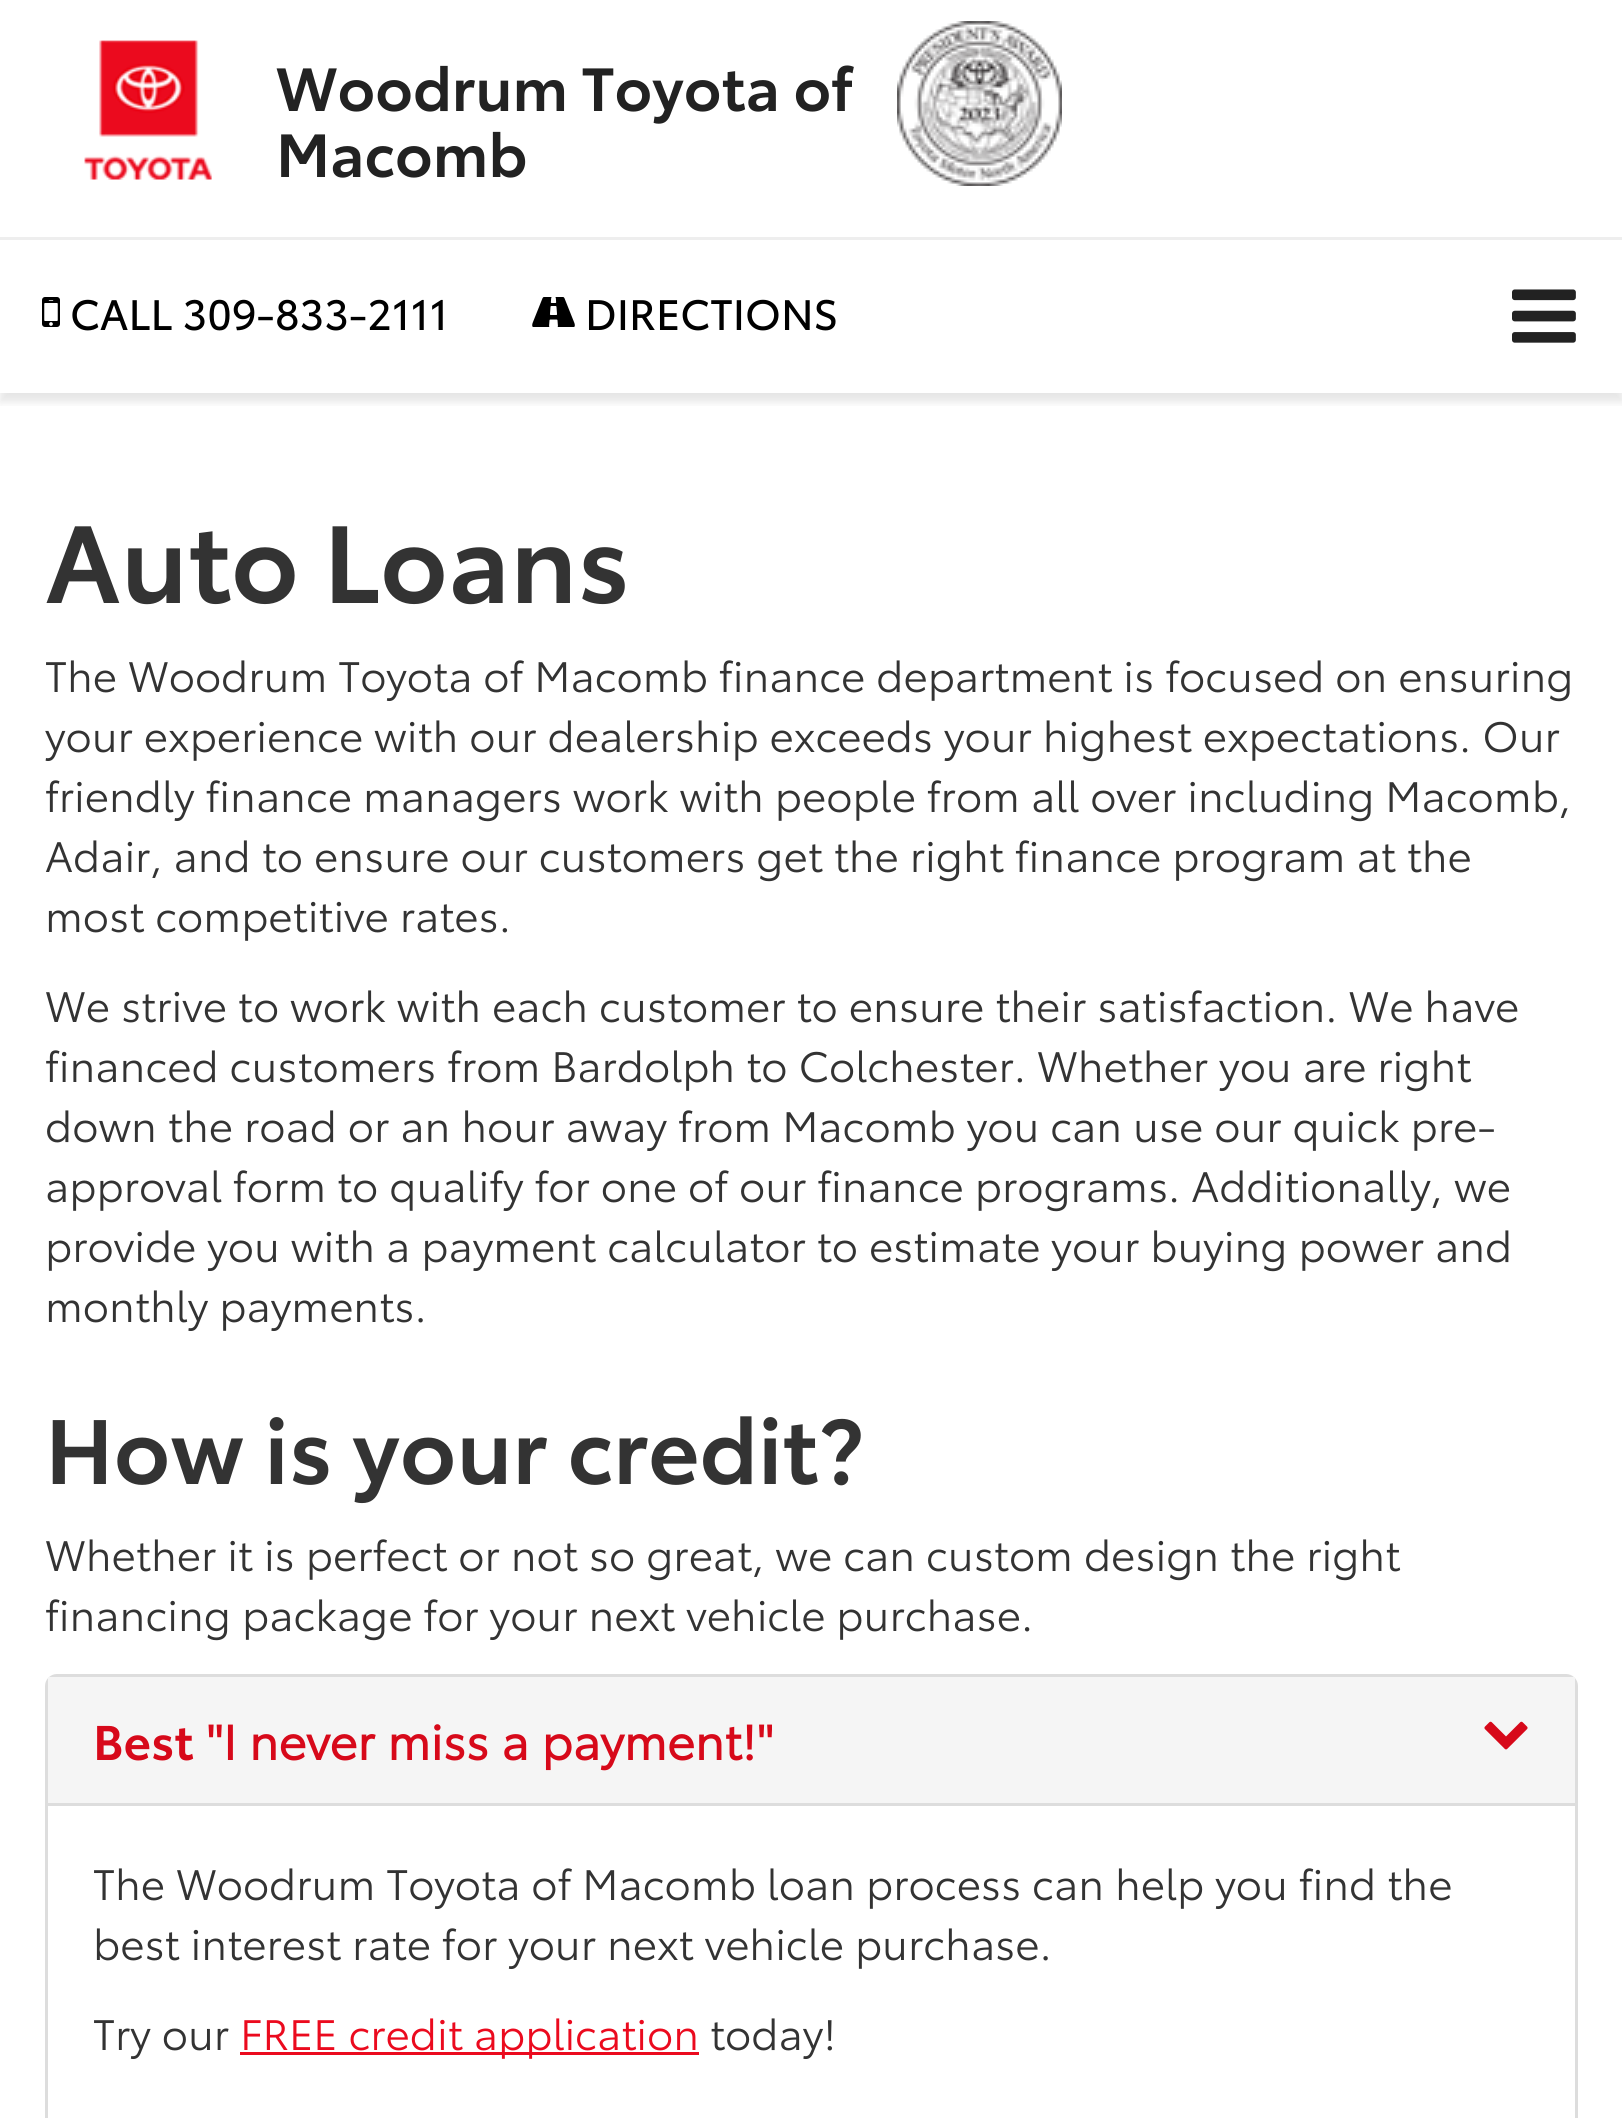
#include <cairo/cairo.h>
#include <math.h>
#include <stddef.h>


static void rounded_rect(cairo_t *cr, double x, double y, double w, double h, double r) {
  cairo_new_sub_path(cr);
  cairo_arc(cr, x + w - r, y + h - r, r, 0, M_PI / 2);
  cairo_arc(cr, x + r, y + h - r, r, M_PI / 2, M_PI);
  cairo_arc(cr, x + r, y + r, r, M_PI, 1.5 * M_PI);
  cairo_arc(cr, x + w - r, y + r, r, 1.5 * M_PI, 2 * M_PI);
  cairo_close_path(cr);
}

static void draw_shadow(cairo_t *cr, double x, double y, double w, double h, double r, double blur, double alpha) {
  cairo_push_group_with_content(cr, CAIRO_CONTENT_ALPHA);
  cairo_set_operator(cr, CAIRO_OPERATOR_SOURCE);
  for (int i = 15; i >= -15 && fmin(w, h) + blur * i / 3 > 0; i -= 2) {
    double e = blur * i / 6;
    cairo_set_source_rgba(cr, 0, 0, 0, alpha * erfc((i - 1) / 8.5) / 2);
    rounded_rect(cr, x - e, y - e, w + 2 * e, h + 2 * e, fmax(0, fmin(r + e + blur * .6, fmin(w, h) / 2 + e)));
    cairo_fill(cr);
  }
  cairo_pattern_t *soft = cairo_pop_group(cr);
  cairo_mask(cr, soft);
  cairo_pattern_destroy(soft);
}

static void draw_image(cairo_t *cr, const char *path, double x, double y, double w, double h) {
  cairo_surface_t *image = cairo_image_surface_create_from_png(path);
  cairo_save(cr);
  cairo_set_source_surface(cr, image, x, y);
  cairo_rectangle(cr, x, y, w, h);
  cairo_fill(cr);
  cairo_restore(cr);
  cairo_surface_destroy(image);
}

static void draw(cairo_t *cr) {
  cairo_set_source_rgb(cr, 1, 1, 1);
  cairo_paint(cr);
  draw_image(cr, "images/1.png", 84, 40, 128, 140);
  draw_image(cr, "images/2.png", 897, 21, 165, 165);
  cairo_set_source_rgb(cr, 238 / 255.0, 238 / 255.0, 238 / 255.0);
  cairo_rectangle(cr, 0, 237, 1622, 3);
  cairo_fill(cr);
  cairo_save(cr);
  cairo_rectangle(cr, 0, 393, 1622, 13);
  cairo_clip(cr);
  cairo_set_source_rgb(cr, 0, 0, 0);
  draw_shadow(cr, 0, 249, 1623, 153, 0, 4.5, 0.1);
  cairo_restore(cr);
  draw_image(cr, "images/3.png", 42, 297, 18, 30);
  draw_image(cr, "images/4.png", 532, 297, 43, 30);
  draw_image(cr, "images/5.png", 1512, 289, 64, 54);
  rounded_rect(cr, 46.5, 1675.5, 1530, 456, 10.5);
  cairo_set_source_rgb(cr, 221 / 255.0, 221 / 255.0, 221 / 255.0);
  cairo_set_line_width(cr, 3);
  cairo_stroke(cr);
  cairo_set_source_rgb(cr, 245 / 255.0, 245 / 255.0, 245 / 255.0);
  cairo_rectangle(cr, 48, 1677, 1527, 126);
  cairo_fill(cr);
  draw_image(cr, "images/6.png", 1484, 1721, 44, 29);
  cairo_set_source_rgb(cr, 221 / 255.0, 221 / 255.0, 221 / 255.0);
  cairo_rectangle(cr, 48, 1803, 1527, 3);
  cairo_fill(cr);
  cairo_set_source_rgb(cr, 235 / 255.0, 10 / 255.0, 30 / 255.0);
  cairo_rectangle(cr, 240, 2052, 459, 3);
  cairo_fill(cr);
  cairo_select_font_face(cr, "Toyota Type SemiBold", CAIRO_FONT_SLANT_NORMAL, CAIRO_FONT_WEIGHT_NORMAL);
  cairo_set_font_size(cr, 60);
  cairo_set_source_rgb(cr, 34 / 255.0, 34 / 255.0, 34 / 255.0);
  cairo_move_to(cr, 276, 111);
  cairo_show_text(cr, "Woodrum Toyota of");
  cairo_move_to(cr, 276, 177);
  cairo_show_text(cr, "Macomb");
  cairo_select_font_face(cr, "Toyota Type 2", CAIRO_FONT_SLANT_NORMAL, CAIRO_FONT_WEIGHT_NORMAL);
  cairo_set_font_size(cr, 42);
  cairo_set_source_rgb(cr, 0, 0, 0);
  cairo_move_to(cr, 70, 330);
  cairo_show_text(cr, "CALL 309-833-2111");
  cairo_move_to(cr, 585, 330);
  cairo_show_text(cr, "DIRECTIONS");
  cairo_select_font_face(cr, "Toyota Type SemiBold", CAIRO_FONT_SLANT_NORMAL, CAIRO_FONT_WEIGHT_NORMAL);
  cairo_set_font_size(cr, 108);
  cairo_set_source_rgb(cr, 51 / 255.0, 51 / 255.0, 51 / 255.0);
  cairo_move_to(cr, 45, 603);
  cairo_show_text(cr, "Auto Loans");
  cairo_select_font_face(cr, "Toyota Type", CAIRO_FONT_SLANT_NORMAL, CAIRO_FONT_WEIGHT_NORMAL);
  cairo_set_font_size(cr, 42);
  cairo_move_to(cr, 45, 692);
  cairo_show_text(cr, "The Woodrum Toyota of Macomb finance department is focused on ensuring");
  cairo_move_to(cr, 45, 752);
  cairo_show_text(cr, "your experience with our dealership exceeds your highest expectations. Our");
  cairo_move_to(cr, 45, 812);
  cairo_show_text(cr, "friendly finance managers work with people from all over including Macomb,");
  cairo_move_to(cr, 45, 872);
  cairo_show_text(cr, "Adair, and to ensure our customers get the right finance program at the");
  cairo_move_to(cr, 45, 932);
  cairo_show_text(cr, "most competitive rates.");
  cairo_move_to(cr, 45, 1022);
  cairo_show_text(cr, "We strive to work with each customer to ensure their satisfaction. We have");
  cairo_move_to(cr, 45, 1082);
  cairo_show_text(cr, "financed customers from Bardolph to Colchester. Whether you are right");
  cairo_move_to(cr, 45, 1142);
  cairo_show_text(cr, "down the road or an hour away from Macomb you can use our quick pre-");
  cairo_move_to(cr, 45, 1202);
  cairo_show_text(cr, "approval form to qualify for one of our finance programs. Additionally, we");
  cairo_move_to(cr, 45, 1262);
  cairo_show_text(cr, "provide you with a payment calculator to estimate your buying power and");
  cairo_move_to(cr, 45, 1322);
  cairo_show_text(cr, "monthly payments.");
  cairo_select_font_face(cr, "Toyota Type SemiBold", CAIRO_FONT_SLANT_NORMAL, CAIRO_FONT_WEIGHT_NORMAL);
  cairo_set_font_size(cr, 90);
  cairo_move_to(cr, 45, 1484);
  cairo_show_text(cr, "How is your credit?");
  cairo_select_font_face(cr, "Toyota Type", CAIRO_FONT_SLANT_NORMAL, CAIRO_FONT_WEIGHT_NORMAL);
  cairo_set_font_size(cr, 42);
  cairo_move_to(cr, 45, 1571);
  cairo_show_text(cr, "Whether it is perfect or not so great, we can custom design the right");
  cairo_move_to(cr, 45, 1631);
  cairo_show_text(cr, "financing package for your next vehicle purchase.");
  cairo_select_font_face(cr, "Toyota Type SemiBold", CAIRO_FONT_SLANT_NORMAL, CAIRO_FONT_WEIGHT_NORMAL);
  cairo_set_font_size(cr, 48);
  cairo_set_source_rgb(cr, 215 / 255.0, 9 / 255.0, 26 / 255.0);
  cairo_move_to(cr, 93, 1760);
  cairo_show_text(cr, "Best");
  cairo_select_font_face(cr, "Toyota Type", CAIRO_FONT_SLANT_NORMAL, CAIRO_FONT_WEIGHT_BOLD);
  cairo_move_to(cr, 206, 1760);
  cairo_show_text(cr, "\"I never miss a payment!\"");
  cairo_select_font_face(cr, "Toyota Type", CAIRO_FONT_SLANT_NORMAL, CAIRO_FONT_WEIGHT_NORMAL);
  cairo_set_font_size(cr, 42);
  cairo_set_source_rgb(cr, 51 / 255.0, 51 / 255.0, 51 / 255.0);
  cairo_move_to(cr, 93, 1900);
  cairo_show_text(cr, "The Woodrum Toyota of Macomb loan process can help you find the");
  cairo_move_to(cr, 93, 1960);
  cairo_show_text(cr, "best interest rate for your next vehicle purchase.");
  cairo_move_to(cr, 93, 2050);
  cairo_show_text(cr, "Try our");
  cairo_set_source_rgb(cr, 235 / 255.0, 10 / 255.0, 30 / 255.0);
  cairo_move_to(cr, 240, 2050);
  cairo_show_text(cr, "FREE credit application");
  cairo_set_source_rgb(cr, 51 / 255.0, 51 / 255.0, 51 / 255.0);
  cairo_move_to(cr, 710, 2050);
  cairo_show_text(cr, "today!");
}

int main(void) {
  cairo_surface_t *surface = cairo_image_surface_create(CAIRO_FORMAT_RGB24, 1622, 2118);
  cairo_t *cr = cairo_create(surface);
  cairo_font_options_t *options = cairo_font_options_create();
  cairo_font_options_set_hint_metrics(options, CAIRO_HINT_METRICS_OFF);
  cairo_font_options_set_hint_style(options, CAIRO_HINT_STYLE_NONE);
  cairo_set_font_options(cr, options);
  cairo_set_miter_limit(cr, 4);
  draw(cr);
  cairo_surface_write_to_png(surface, "out.png");
  cairo_font_options_destroy(options);
  cairo_destroy(cr);
  cairo_surface_destroy(surface);
  return 0;
}
